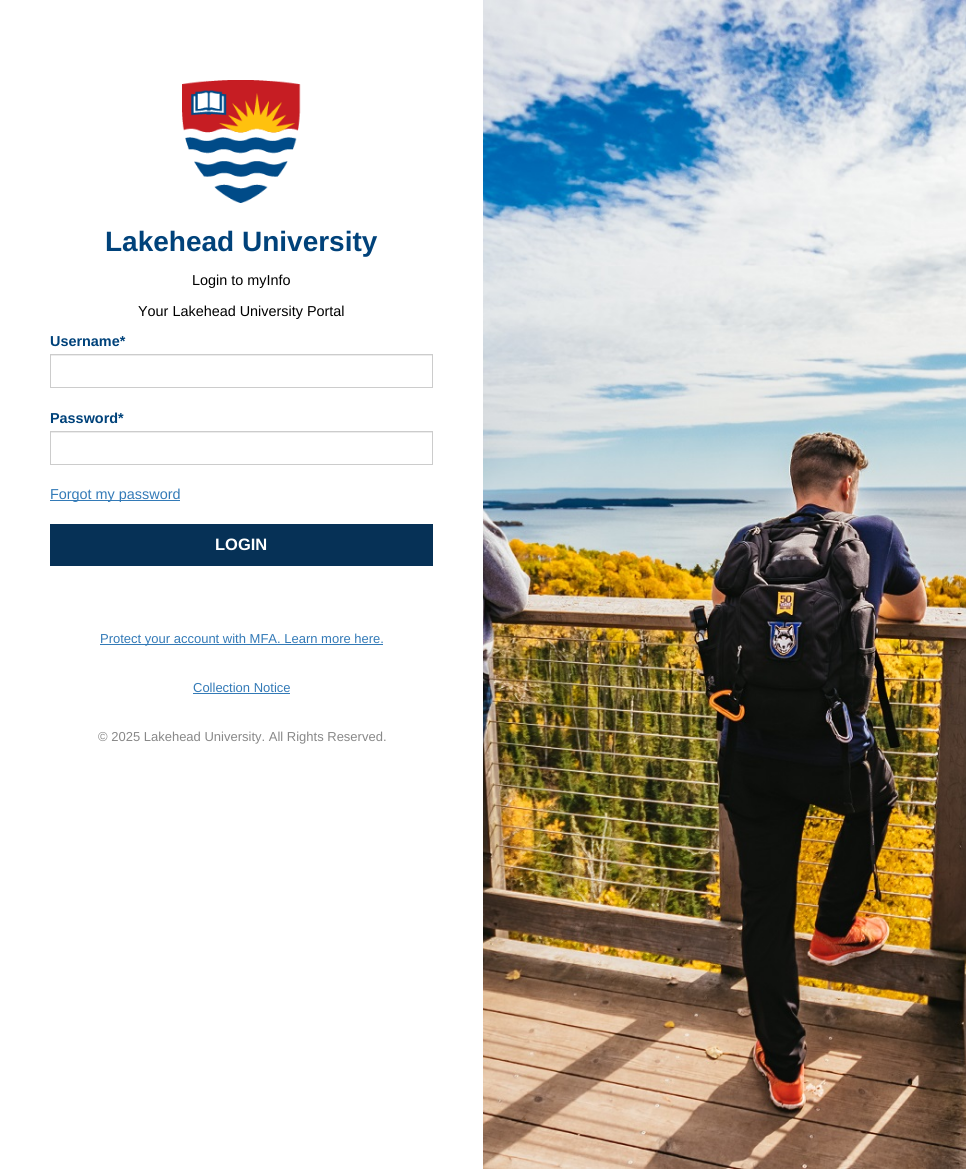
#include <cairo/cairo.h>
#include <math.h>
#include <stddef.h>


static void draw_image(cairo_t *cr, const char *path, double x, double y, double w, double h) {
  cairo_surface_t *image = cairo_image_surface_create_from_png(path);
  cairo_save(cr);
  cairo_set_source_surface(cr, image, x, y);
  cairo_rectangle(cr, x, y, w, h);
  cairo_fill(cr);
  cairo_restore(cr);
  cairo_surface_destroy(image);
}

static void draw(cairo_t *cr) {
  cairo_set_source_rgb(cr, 1, 1, 1);
  cairo_paint(cr);
  draw_image(cr, "images/1.png", 182, 80, 119, 123);
  cairo_set_source_rgb(cr, 236 / 255.0, 236 / 255.0, 236 / 255.0);
  cairo_rectangle(cr, 51, 355, 381, 1);
  cairo_fill(cr);
  cairo_rectangle(cr, 50.5, 354.5, 382, 33);
  cairo_set_source_rgb(cr, 204 / 255.0, 204 / 255.0, 204 / 255.0);
  cairo_set_line_width(cr, 1);
  cairo_stroke(cr);
  cairo_set_source_rgb(cr, 236 / 255.0, 236 / 255.0, 236 / 255.0);
  cairo_rectangle(cr, 51, 432, 381, 1);
  cairo_fill(cr);
  cairo_rectangle(cr, 50.5, 431.5, 382, 33);
  cairo_set_source_rgb(cr, 204 / 255.0, 204 / 255.0, 204 / 255.0);
  cairo_stroke(cr);
  cairo_set_source_rgb(cr, 51 / 255.0, 122 / 255.0, 183 / 255.0);
  cairo_rectangle(cr, 50, 500, 130, 1);
  cairo_fill(cr);
  cairo_set_source_rgb(cr, 6 / 255.0, 49 / 255.0, 86 / 255.0);
  cairo_rectangle(cr, 50, 524, 383, 42);
  cairo_fill(cr);
  cairo_set_source_rgb(cr, 51 / 255.0, 122 / 255.0, 183 / 255.0);
  cairo_rectangle(cr, 100, 644, 283, 1);
  cairo_fill(cr);
  cairo_rectangle(cr, 193, 693, 97, 1);
  cairo_fill(cr);
  draw_image(cr, "images/2.png", 483, 0, 483, 1169);
  cairo_select_font_face(cr, "Liberation Sans", CAIRO_FONT_SLANT_NORMAL, CAIRO_FONT_WEIGHT_BOLD);
  cairo_set_font_size(cr, 28);
  cairo_set_source_rgb(cr, 0, 66 / 255.0, 122 / 255.0);
  cairo_move_to(cr, 105, 251);
  cairo_show_text(cr, "Lakehead University");
  cairo_select_font_face(cr, "Liberation Sans", CAIRO_FONT_SLANT_NORMAL, CAIRO_FONT_WEIGHT_NORMAL);
  cairo_set_font_size(cr, 14.4);
  cairo_set_source_rgb(cr, 0, 0, 0);
  cairo_move_to(cr, 192, 285);
  cairo_show_text(cr, "Login to myInfo");
  cairo_move_to(cr, 138, 316);
  cairo_show_text(cr, "Your Lakehead University Portal");
  cairo_select_font_face(cr, "Liberation Sans", CAIRO_FONT_SLANT_NORMAL, CAIRO_FONT_WEIGHT_BOLD);
  cairo_set_source_rgb(cr, 0, 66 / 255.0, 122 / 255.0);
  cairo_move_to(cr, 50, 346);
  cairo_show_text(cr, "Username*");
  cairo_move_to(cr, 50, 423);
  cairo_show_text(cr, "Password*");
  cairo_select_font_face(cr, "Liberation Sans", CAIRO_FONT_SLANT_NORMAL, CAIRO_FONT_WEIGHT_NORMAL);
  cairo_set_source_rgb(cr, 51 / 255.0, 122 / 255.0, 183 / 255.0);
  cairo_move_to(cr, 50, 499);
  cairo_show_text(cr, "Forgot my password");
  cairo_select_font_face(cr, "Liberation Sans", CAIRO_FONT_SLANT_NORMAL, CAIRO_FONT_WEIGHT_BOLD);
  cairo_set_font_size(cr, 16.5);
  cairo_set_source_rgb(cr, 1, 1, 1);
  cairo_move_to(cr, 215, 550);
  cairo_show_text(cr, "LOGIN");
  cairo_select_font_face(cr, "Liberation Sans", CAIRO_FONT_SLANT_NORMAL, CAIRO_FONT_WEIGHT_NORMAL);
  cairo_set_font_size(cr, 13);
  cairo_set_source_rgb(cr, 51 / 255.0, 122 / 255.0, 183 / 255.0);
  cairo_move_to(cr, 100, 643);
  cairo_show_text(cr, "Protect your account with MFA. Learn more here.");
  cairo_move_to(cr, 193, 692);
  cairo_show_text(cr, "Collection Notice");
  cairo_set_source_rgb(cr, 136 / 255.0, 136 / 255.0, 136 / 255.0);
  cairo_move_to(cr, 98, 741);
  cairo_show_text(cr, "© 2025 Lakehead University. All Rights Reserved.");
}

int main(void) {
  cairo_surface_t *surface = cairo_image_surface_create(CAIRO_FORMAT_RGB24, 966, 1169);
  cairo_t *cr = cairo_create(surface);
  cairo_font_options_t *options = cairo_font_options_create();
  cairo_font_options_set_hint_metrics(options, CAIRO_HINT_METRICS_OFF);
  cairo_font_options_set_hint_style(options, CAIRO_HINT_STYLE_NONE);
  cairo_set_font_options(cr, options);
  cairo_set_miter_limit(cr, 4);
  draw(cr);
  cairo_surface_write_to_png(surface, "out.png");
  cairo_font_options_destroy(options);
  cairo_destroy(cr);
  cairo_surface_destroy(surface);
  return 0;
}
